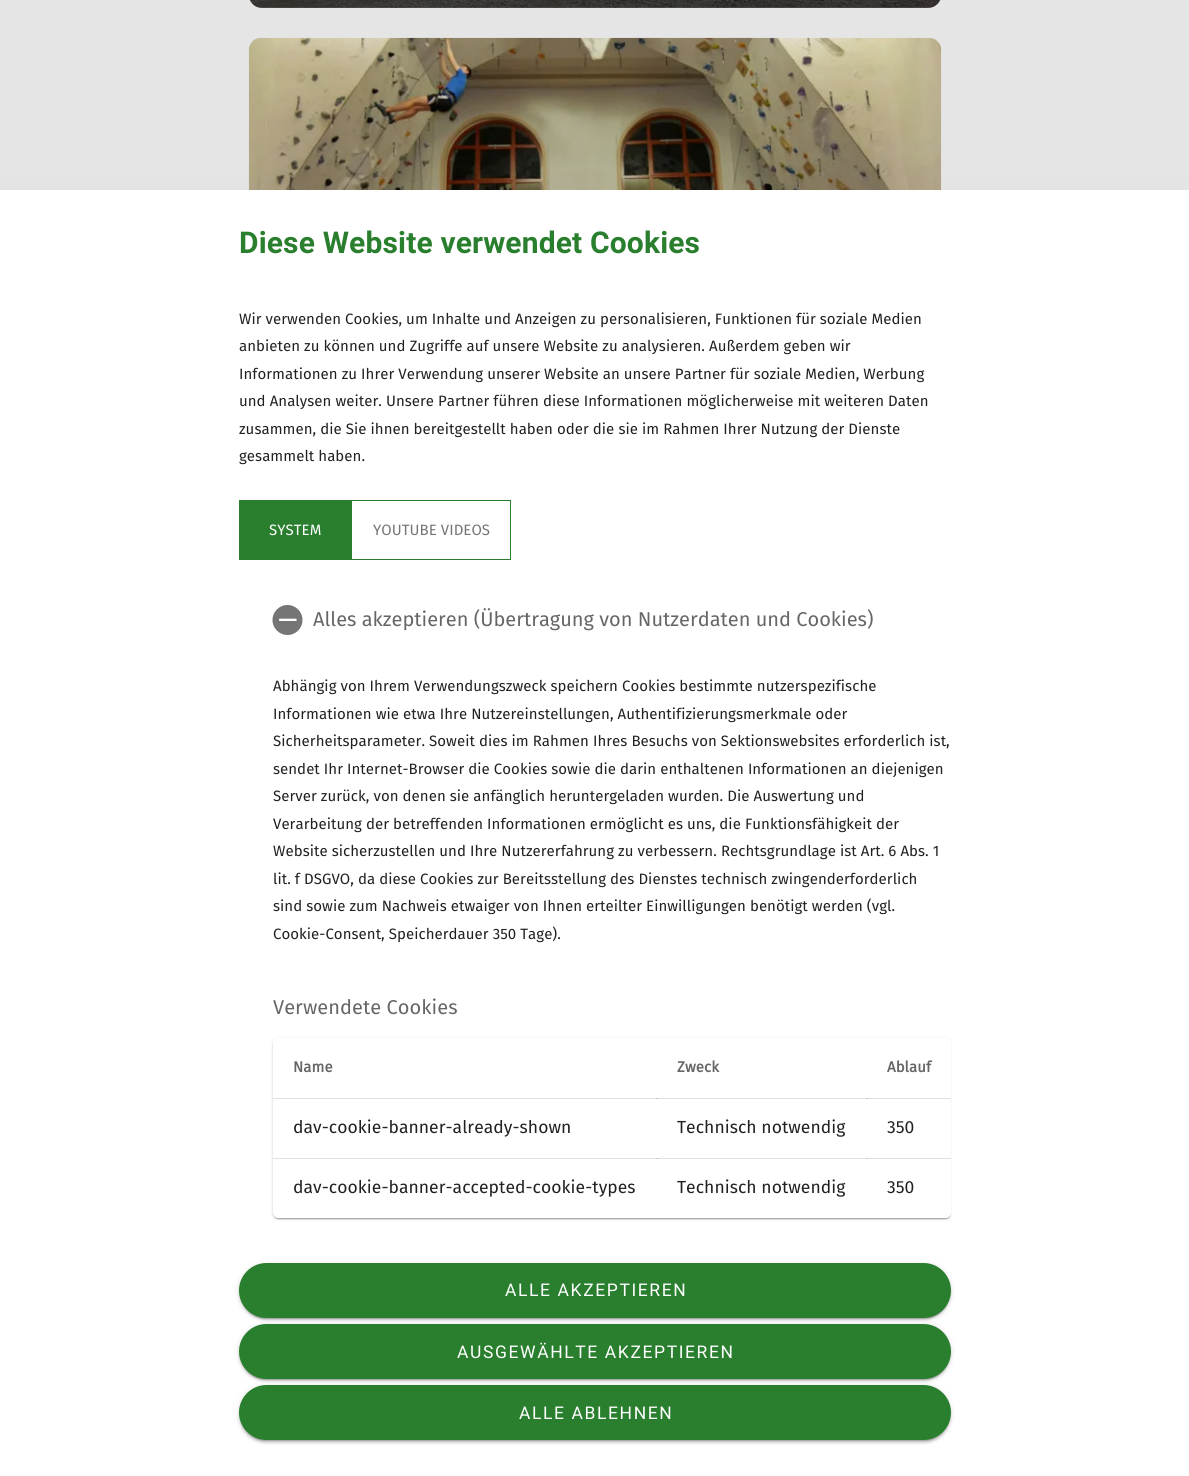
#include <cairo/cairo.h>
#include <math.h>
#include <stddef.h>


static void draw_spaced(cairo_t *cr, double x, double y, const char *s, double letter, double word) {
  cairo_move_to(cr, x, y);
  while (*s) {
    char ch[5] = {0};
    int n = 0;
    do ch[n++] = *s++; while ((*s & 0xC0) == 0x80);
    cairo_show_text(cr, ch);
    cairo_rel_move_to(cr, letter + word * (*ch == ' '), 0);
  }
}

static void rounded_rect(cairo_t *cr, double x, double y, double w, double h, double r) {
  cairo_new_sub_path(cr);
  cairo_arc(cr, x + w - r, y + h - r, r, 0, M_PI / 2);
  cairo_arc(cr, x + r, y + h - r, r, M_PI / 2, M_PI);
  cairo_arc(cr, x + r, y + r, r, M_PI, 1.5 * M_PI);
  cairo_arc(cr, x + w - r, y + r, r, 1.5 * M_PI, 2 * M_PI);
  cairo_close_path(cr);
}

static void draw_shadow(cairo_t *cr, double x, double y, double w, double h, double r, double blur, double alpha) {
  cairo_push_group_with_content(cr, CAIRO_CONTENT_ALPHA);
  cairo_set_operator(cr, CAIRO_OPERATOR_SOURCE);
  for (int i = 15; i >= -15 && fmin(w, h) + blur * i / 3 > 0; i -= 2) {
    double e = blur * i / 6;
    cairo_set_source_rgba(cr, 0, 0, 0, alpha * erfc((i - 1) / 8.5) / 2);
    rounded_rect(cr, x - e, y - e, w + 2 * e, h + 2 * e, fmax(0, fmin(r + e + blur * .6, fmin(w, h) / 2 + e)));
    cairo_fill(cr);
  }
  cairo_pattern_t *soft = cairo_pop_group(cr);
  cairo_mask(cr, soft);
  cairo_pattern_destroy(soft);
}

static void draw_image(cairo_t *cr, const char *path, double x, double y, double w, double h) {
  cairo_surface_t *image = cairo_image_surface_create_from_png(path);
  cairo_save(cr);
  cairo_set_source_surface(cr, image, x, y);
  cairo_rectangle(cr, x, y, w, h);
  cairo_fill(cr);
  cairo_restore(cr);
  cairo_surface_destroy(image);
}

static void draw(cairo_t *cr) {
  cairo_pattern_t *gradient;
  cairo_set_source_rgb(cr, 1, 1, 1);
  cairo_paint(cr);
  draw_image(cr, "images/1.png", 249, 0, 692, 8);
  cairo_set_source_rgba(cr, 0, 0, 0, 0.6);
  cairo_new_path(cr);
  cairo_move_to(cr, 249, -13);
  cairo_line_to(cr, 941, -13);
  cairo_line_to(cr, 941, -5);
  cairo_curve_to(cr, 941, 2, 935, 8, 928, 8);
  cairo_line_to(cr, 262, 8);
  cairo_curve_to(cr, 255, 8, 249, 2, 249, -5);
  cairo_close_path(cr);
  cairo_fill(cr);
  draw_image(cr, "images/2.png", 248, 37, 694, 153);
  gradient = cairo_pattern_create_linear(595, 0, 595, 1476);
  cairo_pattern_add_color_stop_rgba(gradient, 0.1, 0, 0, 0, 0.1);
  cairo_pattern_add_color_stop_rgba(gradient, 1, 0, 0, 0, 0.3);
  cairo_set_source(cr, gradient);
  cairo_pattern_destroy(gradient);
  cairo_rectangle(cr, 0, 0, 1189, 190);
  cairo_fill(cr);
  cairo_set_source_rgb(cr, 41 / 255.0, 127 / 255.0, 46 / 255.0);
  cairo_rectangle(cr, 239, 500, 112, 60);
  cairo_fill(cr);
  cairo_rectangle(cr, 351.5, 500.5, 159, 59);
  cairo_set_line_width(cr, 1);
  cairo_stroke(cr);
  draw_image(cr, "images/3.png", 272, 605, 31, 30);
  cairo_save(cr);
  cairo_rectangle(cr, 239, 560, 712, 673);
  cairo_clip(cr);
  cairo_set_source_rgb(cr, 0, 0, 0);
  draw_shadow(cr, 273, 1039, 678, 180, 5, 2, 0.12);
  cairo_restore(cr);
  cairo_set_source_rgb(cr, 0, 0, 0);
  draw_shadow(cr, 273, 1039, 678, 180, 5, 0.5, 0.14);
  draw_shadow(cr, 274, 1041, 676, 178, 4, 0.5, 0.2);
  cairo_set_source_rgb(cr, 1, 1, 1);
  rounded_rect(cr, 273, 1038, 678, 180, 5);
  cairo_fill(cr);
  cairo_set_source_rgb(cr, 224 / 255.0, 224 / 255.0, 224 / 255.0);
  cairo_rectangle(cr, 866, 1098, 85, 1);
  cairo_fill(cr);
  cairo_set_source_rgba(cr, 0, 0, 0, 0.12);
  cairo_rectangle(cr, 656, 1098, 212, 1);
  cairo_fill(cr);
  cairo_rectangle(cr, 273, 1098, 385, 1);
  cairo_fill(cr);
  cairo_set_source_rgb(cr, 224 / 255.0, 224 / 255.0, 224 / 255.0);
  cairo_rectangle(cr, 866, 1158, 85, 1);
  cairo_fill(cr);
  cairo_set_source_rgba(cr, 0, 0, 0, 0.12);
  cairo_rectangle(cr, 656, 1158, 212, 1);
  cairo_fill(cr);
  cairo_rectangle(cr, 273, 1158, 385, 1);
  cairo_fill(cr);
  cairo_set_source_rgb(cr, 0, 0, 0);
  draw_shadow(cr, 239, 1264, 712, 55, 27.5, 3, 0.12);
  draw_shadow(cr, 239, 1265, 712, 55, 27.5, 1, 0.14);
  draw_shadow(cr, 241, 1269, 708, 50, 25, 0.5, 0.2);
  cairo_set_source_rgb(cr, 41 / 255.0, 127 / 255.0, 46 / 255.0);
  rounded_rect(cr, 239, 1263, 712, 55, 27.5);
  cairo_fill(cr);
  cairo_set_source_rgb(cr, 0, 0, 0);
  draw_shadow(cr, 239, 1325, 712, 55, 27.5, 3, 0.12);
  draw_shadow(cr, 239, 1326, 712, 55, 27.5, 1, 0.14);
  draw_shadow(cr, 241, 1330, 708, 50, 25, 0.5, 0.2);
  cairo_set_source_rgb(cr, 41 / 255.0, 127 / 255.0, 46 / 255.0);
  rounded_rect(cr, 239, 1324, 712, 55, 27.5);
  cairo_fill(cr);
  cairo_set_source_rgb(cr, 0, 0, 0);
  draw_shadow(cr, 239, 1386, 712, 55, 27.5, 3, 0.12);
  draw_shadow(cr, 239, 1388, 712, 55, 27.5, 1, 0.14);
  draw_shadow(cr, 241, 1391, 708, 50, 25, 0.5, 0.2);
  cairo_set_source_rgb(cr, 41 / 255.0, 127 / 255.0, 46 / 255.0);
  rounded_rect(cr, 239, 1385, 712, 55, 27.5);
  cairo_fill(cr);
  cairo_select_font_face(cr, "Roboto", CAIRO_FONT_SLANT_NORMAL, CAIRO_FONT_WEIGHT_BOLD);
  cairo_set_font_size(cr, 30);
  draw_spaced(cr, 239, 253, "Diese Website verwendet Cookies", 0.15, 0);
  cairo_select_font_face(cr, "Fira Sans", CAIRO_FONT_SLANT_NORMAL, CAIRO_FONT_WEIGHT_NORMAL);
  cairo_set_font_size(cr, 15);
  cairo_set_source_rgb(cr, 33 / 255.0, 33 / 255.0, 33 / 255.0);
  draw_spaced(cr, 239, 324, "Wir verwenden Cookies, um Inhalte und Anzeigen zu personalisieren, Funktionen für soziale Medien", 0.05, 0);
  draw_spaced(cr, 239, 351, "anbieten zu können und Zugriffe auf unsere Website zu analysieren. Außerdem geben wir", 0.05, 0);
  draw_spaced(cr, 239, 379, "Informationen zu Ihrer Verwendung unserer Website an unsere Partner für soziale Medien, Werbung", 0.05, 0);
  draw_spaced(cr, 239, 406, "und Analysen weiter. Unsere Partner führen diese Informationen möglicherweise mit weiteren Daten", 0.05, 0);
  draw_spaced(cr, 239, 434, "zusammen, die Sie ihnen bereitgestellt haben oder die sie im Rahmen Ihrer Nutzung der Dienste", 0.05, 0);
  draw_spaced(cr, 239, 461, "gesammelt haben.", 0.05, 0);
  cairo_set_source_rgb(cr, 1, 1, 1);
  draw_spaced(cr, 269, 535, "SYSTEM", 0.05, 0);
  cairo_set_source_rgb(cr, 117 / 255.0, 117 / 255.0, 117 / 255.0);
  draw_spaced(cr, 373, 535, "YOUTUBE VIDEOS", 0.05, 0);
  cairo_set_font_size(cr, 20);
  cairo_set_source_rgb(cr, 102 / 255.0, 102 / 255.0, 102 / 255.0);
  cairo_move_to(cr, 313, 626);
  cairo_show_text(cr, "Alles akzeptieren (Übertragung von Nutzerdaten und Cookies)");
  cairo_set_font_size(cr, 15);
  cairo_set_source_rgb(cr, 33 / 255.0, 33 / 255.0, 33 / 255.0);
  draw_spaced(cr, 273, 691, "Abhängig von Ihrem Verwendungszweck speichern Cookies bestimmte nutzerspezifische", 0.05, 0);
  draw_spaced(cr, 273, 719, "Informationen wie etwa Ihre Nutzereinstellungen, Authentifizierungsmerkmale oder", 0.05, 0);
  draw_spaced(cr, 273, 746, "Sicherheitsparameter. Soweit dies im Rahmen Ihres Besuchs von Sektionswebsites erforderlich ist,", 0.05, 0);
  draw_spaced(cr, 273, 774, "sendet Ihr Internet-Browser die Cookies sowie die darin enthaltenen Informationen an diejenigen", 0.05, 0);
  draw_spaced(cr, 273, 801, "Server zurück, von denen sie anfänglich heruntergeladen wurden. Die Auswertung und", 0.05, 0);
  draw_spaced(cr, 273, 829, "Verarbeitung der betreffenden Informationen ermöglicht es uns, die Funktionsfähigkeit der", 0.05, 0);
  draw_spaced(cr, 273, 856, "Website sicherzustellen und Ihre Nutzererfahrung zu verbessern. Rechtsgrundlage ist Art. 6 Abs. 1", 0.05, 0);
  draw_spaced(cr, 273, 884, "lit. f DSGVO, da diese Cookies zur Bereitsstellung des Dienstes technisch zwingenderforderlich", 0.05, 0);
  draw_spaced(cr, 273, 911, "sind sowie zum Nachweis etwaiger von Ihnen erteilter Einwilligungen benötigt werden (vgl.", 0.05, 0);
  draw_spaced(cr, 273, 939, "Cookie-Consent, Speicherdauer 350 Tage).", 0.05, 0);
  cairo_set_font_size(cr, 20);
  cairo_set_source_rgb(cr, 102 / 255.0, 102 / 255.0, 102 / 255.0);
  draw_spaced(cr, 273, 1014, "Verwendete Cookies", 0.05, 0);
  cairo_select_font_face(cr, "Fira Sans", CAIRO_FONT_SLANT_NORMAL, CAIRO_FONT_WEIGHT_BOLD);
  cairo_set_font_size(cr, 15);
  draw_spaced(cr, 293, 1072, "Name", 0.05, 0);
  draw_spaced(cr, 677, 1072, "Zweck", 0.05, 0);
  draw_spaced(cr, 887, 1072, "Ablauf", 0.05, 0);
  cairo_select_font_face(cr, "Fira Sans", CAIRO_FONT_SLANT_NORMAL, CAIRO_FONT_WEIGHT_NORMAL);
  cairo_set_font_size(cr, 17.5);
  cairo_set_source_rgb(cr, 33 / 255.0, 33 / 255.0, 33 / 255.0);
  draw_spaced(cr, 293, 1133, "dav-cookie-banner-already-shown", 0.05, 0);
  draw_spaced(cr, 677, 1133, "Technisch notwendig", 0.05, 0);
  draw_spaced(cr, 887, 1133, "350", 0.05, 0);
  draw_spaced(cr, 293, 1193, "dav-cookie-banner-accepted-cookie-types", 0.05, 0);
  draw_spaced(cr, 677, 1193, "Technisch notwendig", 0.05, 0);
  draw_spaced(cr, 887, 1193, "350", 0.05, 0);
  cairo_select_font_face(cr, "Roboto", CAIRO_FONT_SLANT_NORMAL, CAIRO_FONT_WEIGHT_NORMAL);
  cairo_set_source_rgb(cr, 1, 1, 1);
  draw_spaced(cr, 505, 1296, "ALLE AKZEPTIEREN", 1.6, 0);
  draw_spaced(cr, 457, 1358, "AUSGEWÄHLTE AKZEPTIEREN", 1.6, 0);
  draw_spaced(cr, 519, 1419, "ALLE ABLEHNEN", 1.6, 0);
}

int main(void) {
  cairo_surface_t *surface = cairo_image_surface_create(CAIRO_FORMAT_RGB24, 1189, 1476);
  cairo_t *cr = cairo_create(surface);
  cairo_font_options_t *options = cairo_font_options_create();
  cairo_font_options_set_hint_metrics(options, CAIRO_HINT_METRICS_OFF);
  cairo_font_options_set_hint_style(options, CAIRO_HINT_STYLE_NONE);
  cairo_set_font_options(cr, options);
  cairo_set_miter_limit(cr, 4);
  draw(cr);
  cairo_surface_write_to_png(surface, "out.png");
  cairo_font_options_destroy(options);
  cairo_destroy(cr);
  cairo_surface_destroy(surface);
  return 0;
}
